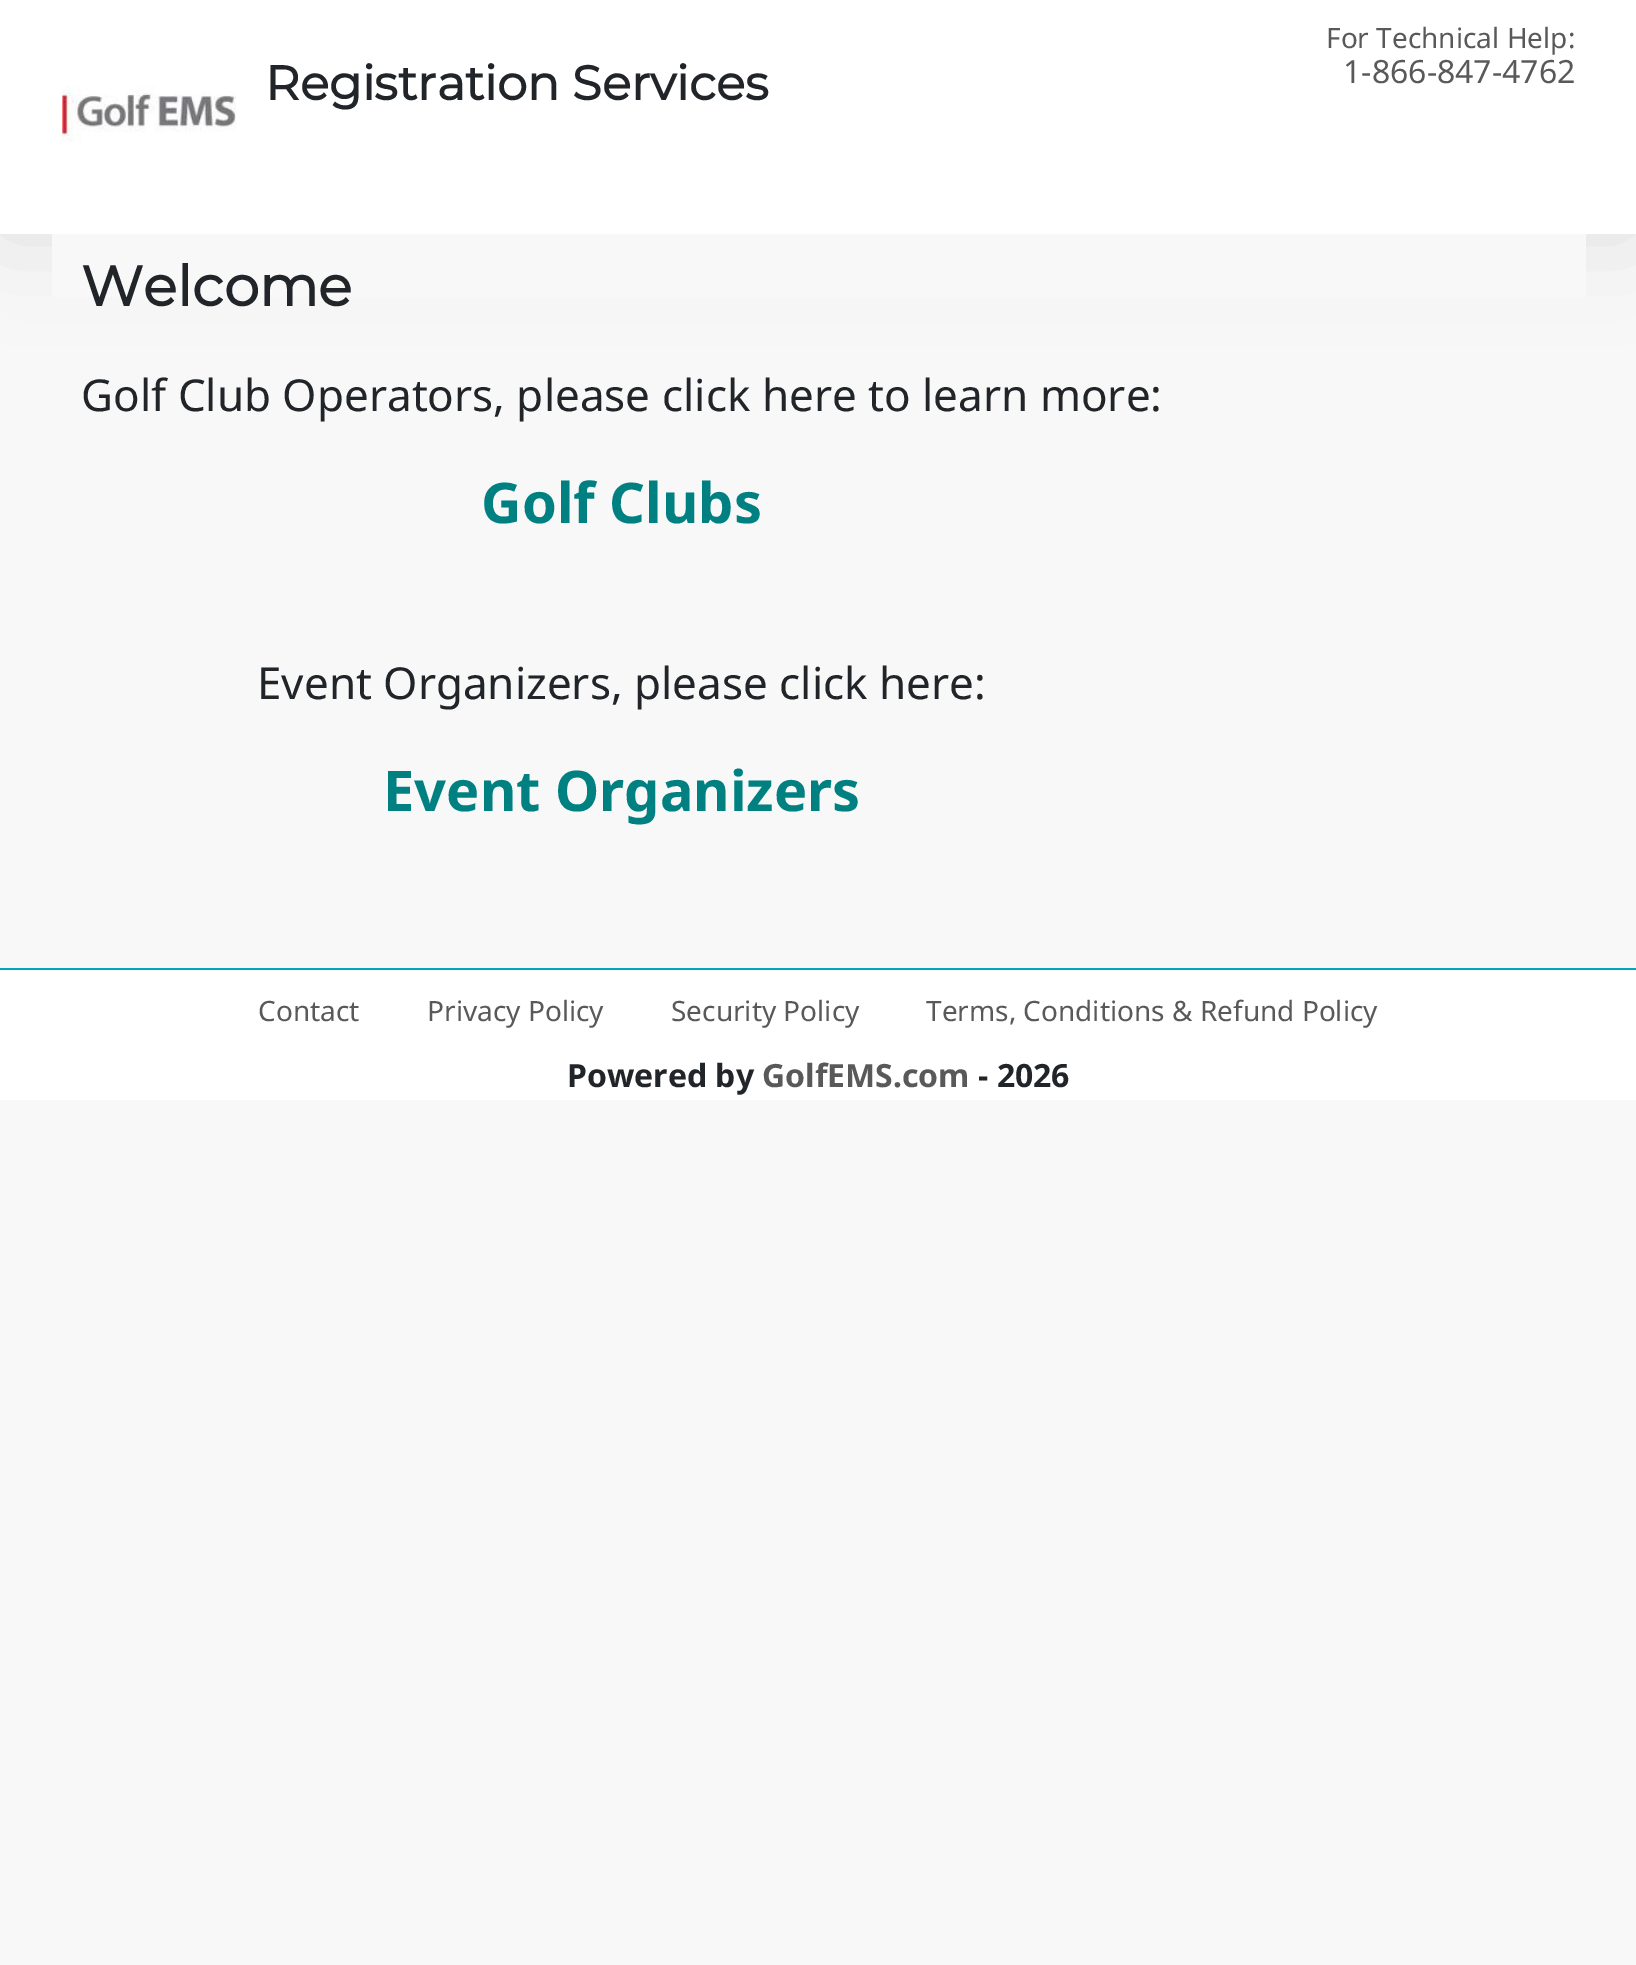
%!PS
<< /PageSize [1636 1965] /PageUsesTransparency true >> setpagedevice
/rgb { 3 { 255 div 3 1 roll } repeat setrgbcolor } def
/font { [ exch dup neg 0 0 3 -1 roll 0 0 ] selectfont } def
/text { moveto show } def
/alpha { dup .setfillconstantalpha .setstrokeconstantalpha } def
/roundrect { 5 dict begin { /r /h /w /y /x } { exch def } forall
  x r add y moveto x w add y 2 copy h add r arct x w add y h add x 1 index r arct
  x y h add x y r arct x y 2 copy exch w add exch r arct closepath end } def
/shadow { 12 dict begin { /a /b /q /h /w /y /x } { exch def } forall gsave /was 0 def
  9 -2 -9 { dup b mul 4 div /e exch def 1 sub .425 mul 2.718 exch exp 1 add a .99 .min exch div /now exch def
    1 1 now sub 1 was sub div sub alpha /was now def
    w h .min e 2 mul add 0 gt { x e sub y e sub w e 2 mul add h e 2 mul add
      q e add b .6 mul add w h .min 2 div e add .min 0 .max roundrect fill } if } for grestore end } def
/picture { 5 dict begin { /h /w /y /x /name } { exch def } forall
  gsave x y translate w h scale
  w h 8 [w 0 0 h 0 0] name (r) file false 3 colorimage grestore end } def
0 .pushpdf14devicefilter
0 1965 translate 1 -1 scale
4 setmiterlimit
248 248 248 rgb
0 0 1636 1965 rectfill
0 0 0 rgb
0 0 1636 234 0 50 0.1 shadow
255 255 255 rgb
0 0 1636 234 rectfill
(img_01.rgb) 62 86 174 56 picture
248 248 248 rgb
52 234 1534 63 rectfill
0 166 186 rgb
0 968 1636 2 rectfill
255 255 255 rgb
0 970 1636 130 rectfill
/Montserrat-Bold 48 font
33 37 41 rgb
(Registration Services) 265 100 text
/NotoSans-Regular 28 font
89 89 89 rgb
(For Technical Help:) 1326 48 text
/NotoSans-Regular 32 font
(1-866-847-4762) 1343 83 text
/Montserrat-Bold 56 font
33 37 41 rgb
(Welcome) 81 306 text
/NotoSans-Regular 44 font
(Golf Club Operators, please click here to learn more:) 81 411 text
/NotoSans-Bold 56 font
0 128 128 rgb
(Golf Clubs) 481 523 text
/NotoSans-Regular 44 font
33 37 41 rgb
(Event Organizers, please click here:) 257 699 text
/NotoSans-Bold 56 font
0 128 128 rgb
(Event Organizers) 383 811 text
/NotoSans-Regular 28 font
89 89 89 rgb
(Contact) 258 1021 text
(Privacy Policy) 427 1021 text
(Security Policy) 671 1021 text
(Terms, Conditions & Refund Policy) 926 1021 text
/NotoSans-Bold 32 font
33 37 41 rgb
(Powered by) 567 1087 text
89 89 89 rgb
(GolfEMS.com) 762 1087 text
33 37 41 rgb
(- 2026) 978 1087 text
.poppdf14devicefilter showpage
